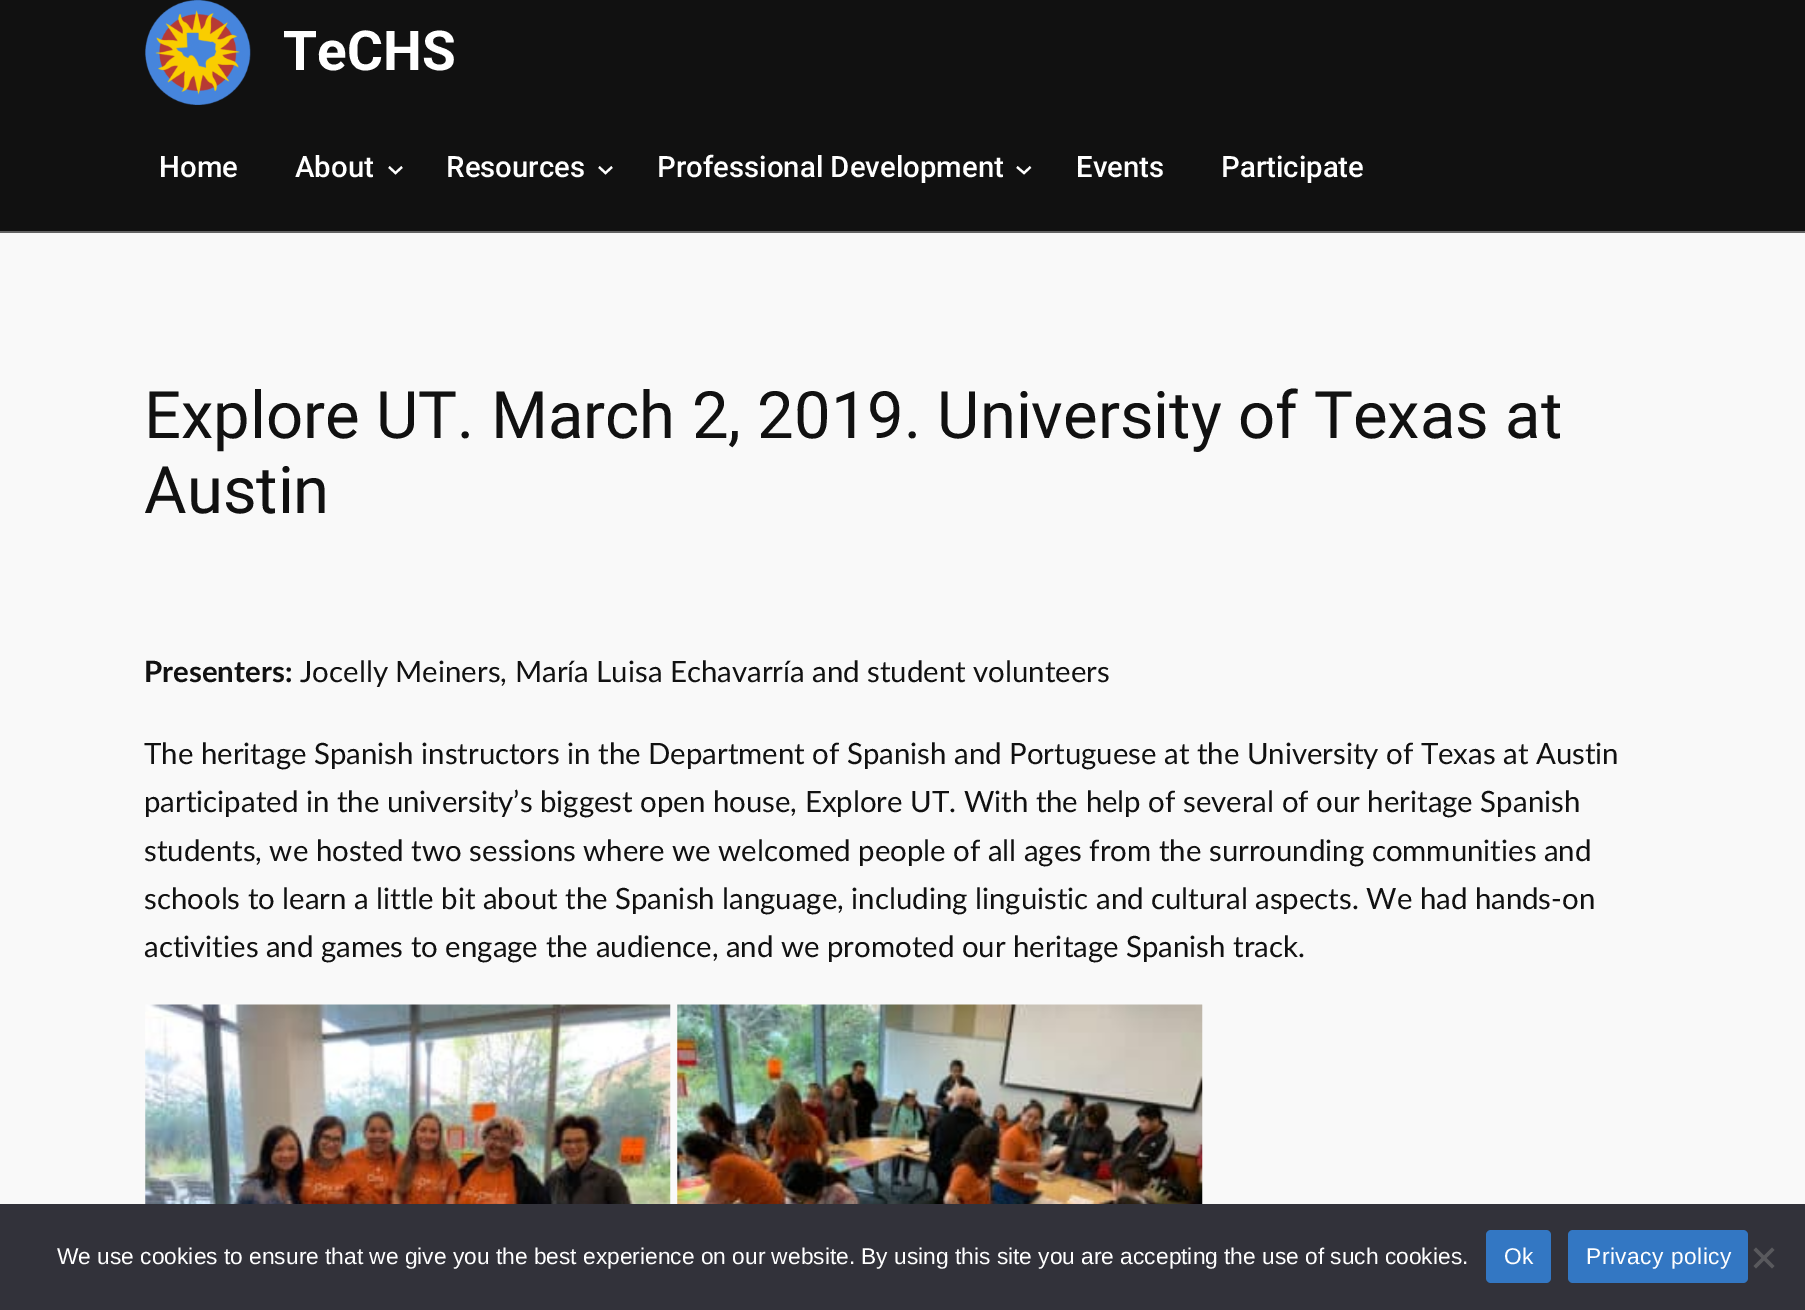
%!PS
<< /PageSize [1805 1310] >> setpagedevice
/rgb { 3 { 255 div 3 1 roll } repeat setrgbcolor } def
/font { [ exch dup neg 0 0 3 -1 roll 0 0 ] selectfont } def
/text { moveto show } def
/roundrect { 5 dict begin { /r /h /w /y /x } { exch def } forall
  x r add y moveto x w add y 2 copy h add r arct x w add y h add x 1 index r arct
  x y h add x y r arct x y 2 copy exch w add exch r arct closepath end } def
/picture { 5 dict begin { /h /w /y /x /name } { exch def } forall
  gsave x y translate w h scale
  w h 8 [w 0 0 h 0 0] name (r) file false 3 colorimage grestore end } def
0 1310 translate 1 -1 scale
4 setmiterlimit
249 249 249 rgb
0 0 1805 1310 rectfill
17 17 17 rgb
0 0 1805 231 rectfill
99 99 99 rgb
0 231 1805 2 rectfill
(img_01.rgb) 145 0 106 105 picture
255 255 255 rgb
2.2 setlinewidth
389 167 moveto 6.5 6 rlineto 6.5 -6 rlineto stroke
599 167 moveto 6.5 6 rlineto 6.5 -6 rlineto stroke
1017 167 moveto 7 6 rlineto 6.5 -6 rlineto stroke
(img_02.rgb) 145 1004 526 200 picture
(img_03.rgb) 677 1004 526 200 picture
50 50 58 rgb
0 1204 1805 106 rectfill
51 119 195 rgb
1486 1230 65 53 5 roundrect fill
1568 1230 180 53 5 roundrect fill
89 89 93 rgb
1772 1247.5 moveto 2.5 2.5 rlineto -18.5 18.5 rlineto -2.5 -2.5 rlineto closepath fill
1753.5 1250 moveto 2.5 -2.5 rlineto 18.5 18.5 rlineto -2.5 2.5 rlineto closepath fill
/Roboto-Bold 55 font
255 255 255 rgb
(TeCHS) 283 70 text
/Roboto-Medium 29.4 font
(Home) 159 177 text
(About) 295 177 text
(Resources) 446 177 text
(Professional Development) 657 177 text
(Events) 1076 177 text
(Participate) 1221 177 text
/Roboto-Regular 65.25 font
17 17 17 rgb
(Explore UT. March 2, 2019. University of Texas at) 144 438 text
(Austin) 144 513 text
/Lato-Bold 29.4 font
(Presenters:) 144 682 text
/Lato-Regular 29.4 font
(Jocelly Meiners, María Luisa Echavarría and student volunteers) 300 682 text
(The heritage Spanish instructors in the Department of Spanish and Portuguese at the University of Texas at Austin) 144 764 text
(participated in the university’s biggest open house, Explore UT. With the help of several of our heritage Spanish) 144 812 text
(students, we hosted two sessions where we welcomed people of all ages from the surrounding communities and) 144 861 text
(schools to learn a little bit about the Spanish language, including linguistic and cultural aspects. We had hands-on) 144 909 text
(activities and games to engage the audience, and we promoted our heritage Spanish track.) 144 957 text
/LiberationSans-Regular 22.75 font
255 255 255 rgb
(We use cookies to ensure that we give you the best experience on our website. By using this site you are accepting the use of such cookies.) 57 1264 text
1504 1264 moveto 0.5 0 (Ok) ashow
1586 1264 moveto 0.5 0 (Privacy policy) ashow
showpage
